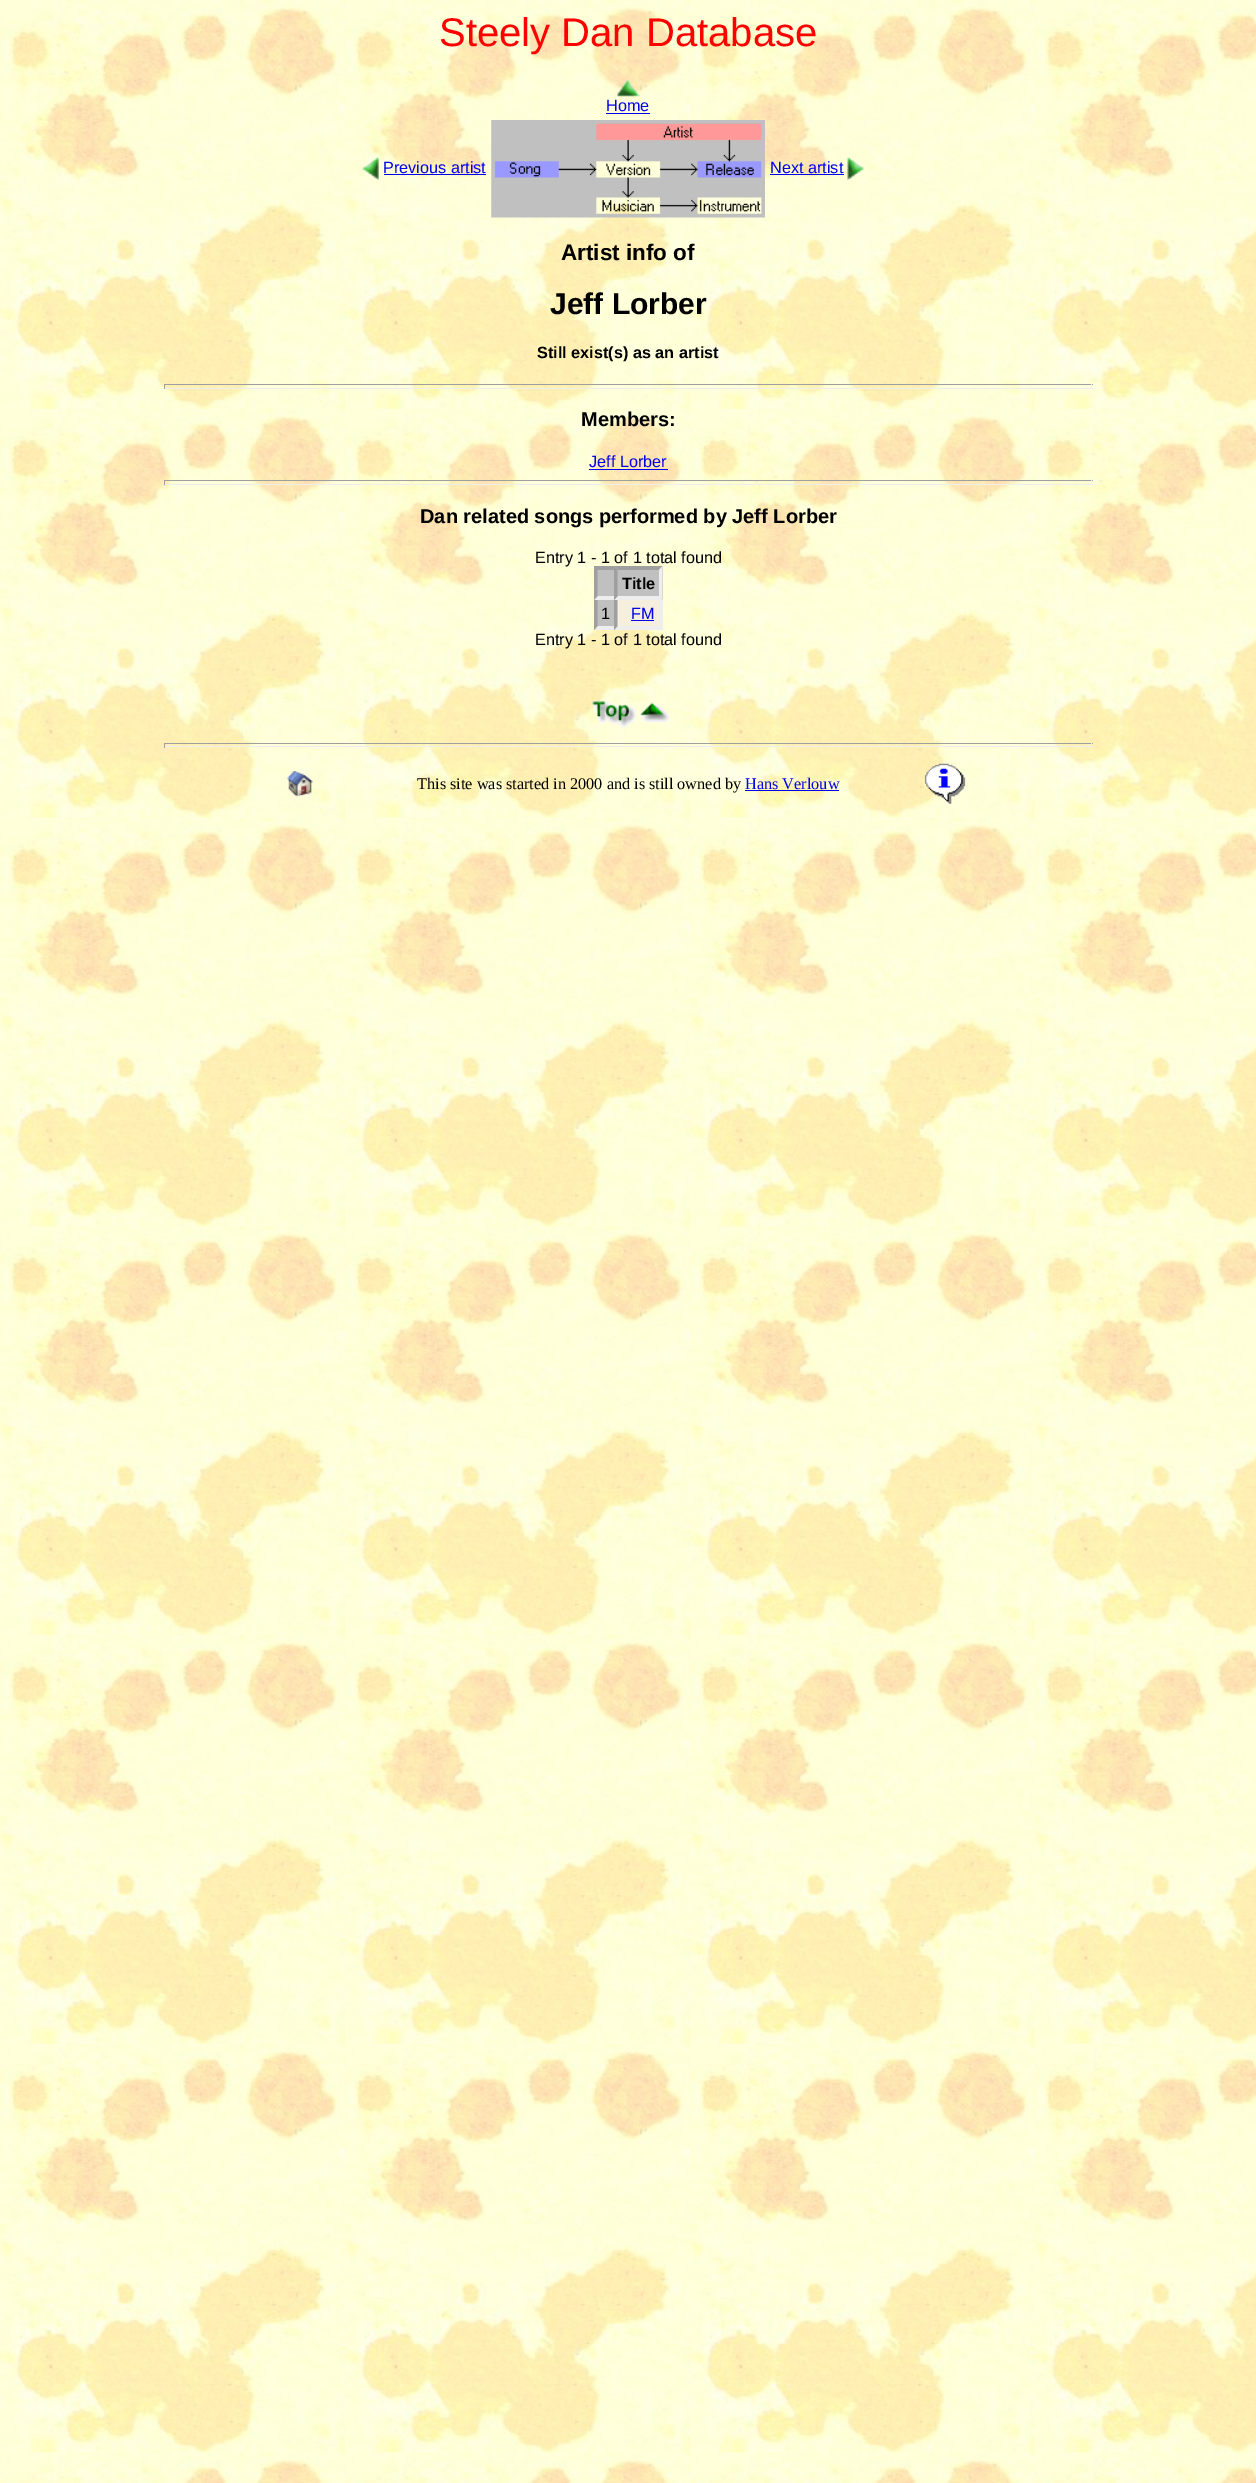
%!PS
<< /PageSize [1256 2483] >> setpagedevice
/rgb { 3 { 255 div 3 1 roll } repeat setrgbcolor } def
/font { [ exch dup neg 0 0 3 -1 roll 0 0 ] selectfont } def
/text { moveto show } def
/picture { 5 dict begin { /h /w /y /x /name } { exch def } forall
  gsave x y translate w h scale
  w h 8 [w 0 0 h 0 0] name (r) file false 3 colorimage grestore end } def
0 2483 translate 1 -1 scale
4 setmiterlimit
255 255 255 rgb
0 0 1256 2483 rectfill
(img_01.rgb) 0 0 1256 2483 picture
(img_02.rgb) 617 80 23 17 picture
0 0 238 rgb
606 113 44 1 rectfill
(img_03.rgb) 362 157 17 23 picture
384 174 102 1 rectfill
(img_04.rgb) 491 120 274 98 picture
770 174 74 1 rectfill
(img_05.rgb) 847 157 17 23 picture
159 159 159 rgb
164 384 929 1 rectfill
238 238 238 rgb
1091 384 1 5 rectfill
164 388 929 1 rectfill
159 159 159 rgb
164 384 1 5 rectfill
0 0 238 rgb
589 469 79 1 rectfill
159 159 159 rgb
164 480 929 1 rectfill
238 238 238 rgb
1091 480 1 5 rectfill
164 484 929 1 rectfill
159 159 159 rgb
164 480 1 5 rectfill
247 239 222 rgb
614 600 45 30 rectfill
192 192 192 rgb
594 570 20 60 rectfill
159 159 159 rgb
594 566 20 4 rectfill
238 238 238 rgb
614 600 moveto -20 0 rlineto 3.5 -4 rlineto 16.5 0 rlineto closepath fill
159 159 159 rgb
594 600 moveto 0 -34 rlineto 3.5 4 rlineto 0 26 rlineto closepath fill
192 192 192 rgb
614 566 49 34 rectfill
159 159 159 rgb
614 566 moveto 48 0 rlineto -3 4 rlineto -41 0 rlineto closepath fill
238 238 238 rgb
662.5 566 moveto 0 34 rlineto -3.5 -4 rlineto 0 -26 rlineto closepath fill
662 600 moveto -48 0 rlineto 4 -4 rlineto 41 0 rlineto closepath fill
159 159 159 rgb
614 600 moveto 0 -34 rlineto 3.5 4 rlineto 0 26 rlineto closepath fill
238 238 238 rgb
614 630 moveto -20 0 rlineto 3.5 -4 rlineto 16.5 0 rlineto closepath fill
159 159 159 rgb
594 630 moveto 0 -30 rlineto 3.5 0 rlineto 0 26 rlineto closepath fill
238 238 238 rgb
627.5 630 moveto -13.5 0 rlineto 3.5 -4 rlineto 10 0 rlineto closepath fill
159 159 159 rgb
614 630 moveto 0 -30 rlineto 3.5 0 rlineto 0 26 rlineto closepath fill
238 238 238 rgb
659 600 4 30 rectfill
628 626 35 4 rectfill
0 0 238 rgb
631 620 23 1 rectfill
(img_06.rgb) 592 701 78 27 picture
159 159 159 rgb
164 743 929 1 rectfill
238 238 238 rgb
1091 743 1 5 rectfill
164 746 929 1 rectfill
159 159 159 rgb
164 743 1 5 rectfill
(img_07.rgb) 287 771 26 26 picture
0 0 238 rgb
745 790 94 1 rectfill
(img_08.rgb) 924 763 42 41 picture
/LiberationSans-Regular 40 font
255 0 0 rgb
(Steely Dan Database) 439 46 text
/LiberationSans-Regular 16.25 font
0 0 238 rgb
(Home) 606 111 text
(Previous artist) 383 173 text
(Next artist) 770 173 text
/LiberationSans-Bold 22.5 font
0 0 0 rgb
(Artist info of) 561 260 text
/LiberationSans-Bold 30 font
(Jeff Lorber) 550 314 text
/LiberationSans-Bold 16.25 font
(Still exist\(s\) as an artist) 537 358 text
/LiberationSans-Bold 20 font
(Members:) 581 426 text
/LiberationSans-Regular 16.25 font
0 0 238 rgb
(Jeff Lorber) 589 467 text
/LiberationSans-Bold 20 font
0 0 0 rgb
(Dan related songs performed by Jeff Lorber) 420 523 text
/LiberationSans-Regular 16.25 font
(Entry 1 - 1 of 1 total found) 535 563 text
/LiberationSans-Bold 16.25 font
(Title) 622 589 text
/LiberationSans-Regular 16.25 font
(1) 601 619 text
0 0 238 rgb
(FM) 631 619 text
0 0 0 rgb
(Entry 1 - 1 of 1 total found) 535 645 text
/LiberationSerif-Regular 16.25 font
(This site was started in 2000 and is still owned by) 417 789 text
0 0 238 rgb
(Hans Verlouw) 745 789 text
showpage
